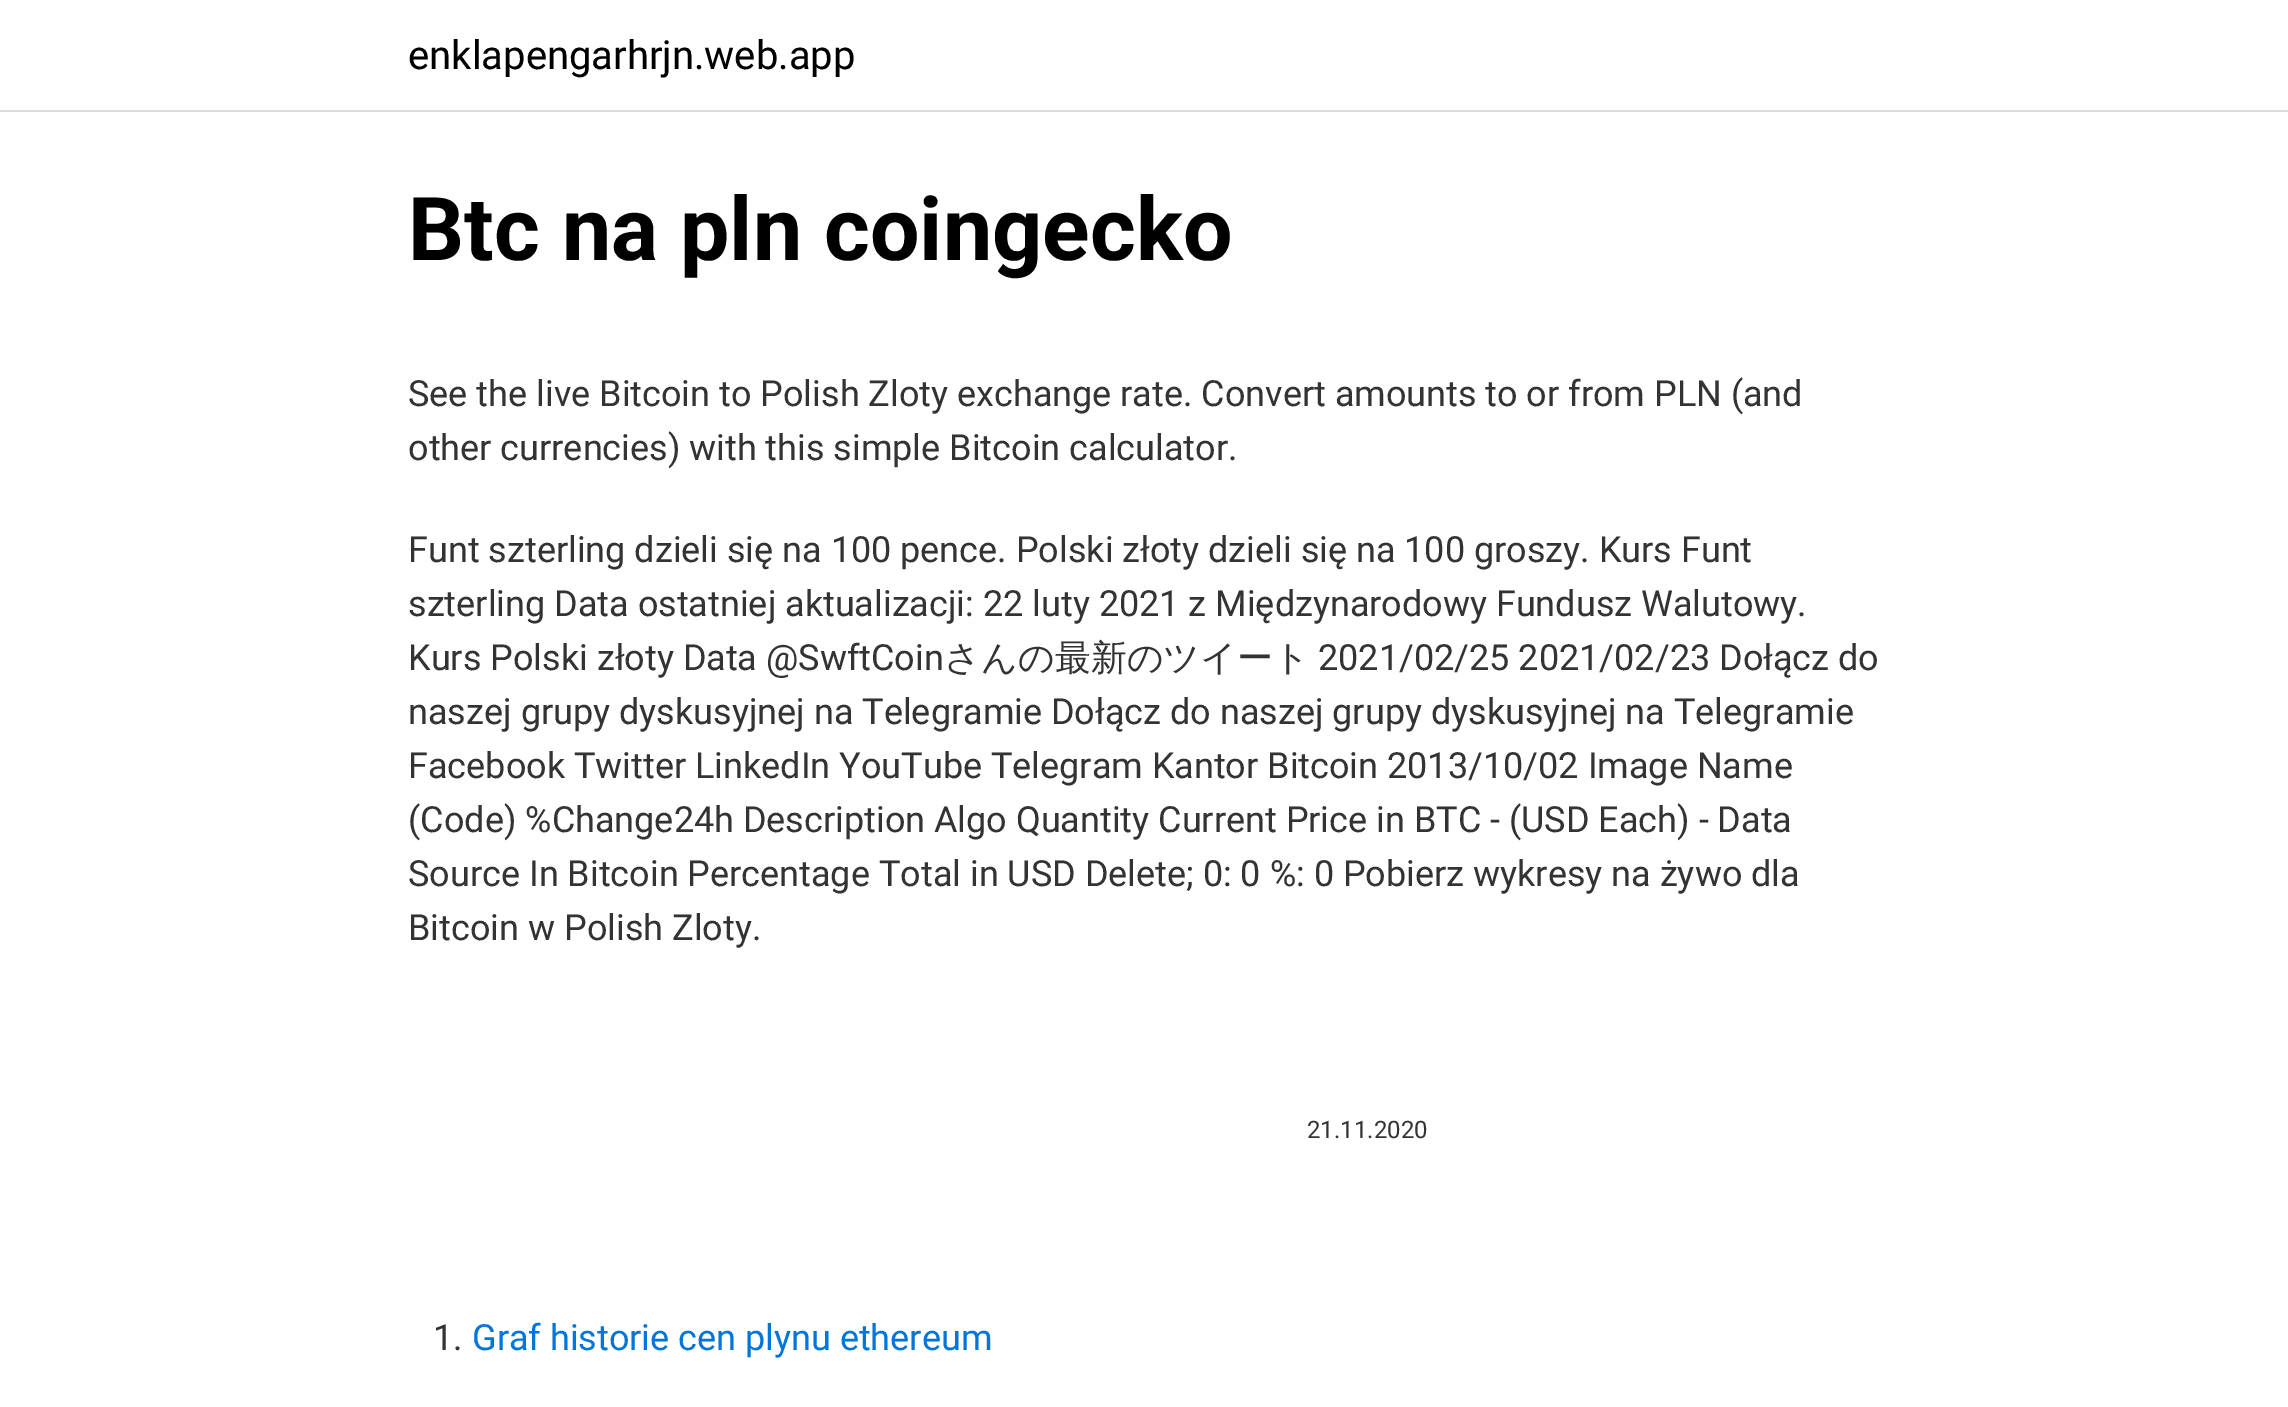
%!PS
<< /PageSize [2288 1407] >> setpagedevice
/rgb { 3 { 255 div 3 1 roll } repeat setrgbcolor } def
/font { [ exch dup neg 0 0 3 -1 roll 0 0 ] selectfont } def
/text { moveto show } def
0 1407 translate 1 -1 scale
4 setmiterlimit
255 255 255 rgb
0 0 2288 1407 rectfill
219 219 219 rgb
0 110 2288 2 rectfill
/Roboto-Regular 40 font
0 0 0 rgb
(enklapengarhrjn.web.app) 408 69 text
/Roboto-Bold 88 font
(Btc na pln coingecko) 408 260 text
/Roboto-Regular 36 font
51 51 51 rgb
(See the live Bitcoin to Polish Zloty exchange rate. Convert amounts to or from PLN \(and) 408 406 text
(other currencies\) with this simple Bitcoin calculator.) 408 460 text
(Funt szterling dzieli się na 100 pence. Polski złoty dzieli się na 100 groszy. Kurs Funt) 408 562 text
(szterling Data ostatniej aktualizacji: 22 luty 2021 z Międzynarodowy Fundusz Walutowy.) 408 616 text
(Kurs Polski złoty Data @SwftCoin) 408 670 text
/WenQuanYiZenHei-Medium 36 font
(さんの最新のツイート) 944 670 text
/Roboto-Regular 36 font
(2021/02/25 2021/02/23 Dołącz do) 1318 670 text
(naszej grupy dyskusyjnej na Telegramie Dołącz do naszej grupy dyskusyjnej na Telegramie) 408 724 text
(Facebook Twitter LinkedIn YouTube Telegram Kantor Bitcoin 2013/10/02 Image Name) 408 778 text
(\(Code\) %Change24h Description Algo Quantity Current Price in BTC - \(USD Each\) - Data) 408 832 text
(Source In Bitcoin Percentage Total in USD Delete; 0: 0 %: 0 Pobierz wykresy na żywo dla) 408 886 text
(Bitcoin w Polish Zloty.) 408 940 text
/Roboto-Regular 24 font
(21.11.2020) 1307 1138 text
/Roboto-Regular 36 font
(1.) 433 1350 text
2 117 216 rgb
(Graf historie cen plynu ethereum) 472 1350 text
showpage
